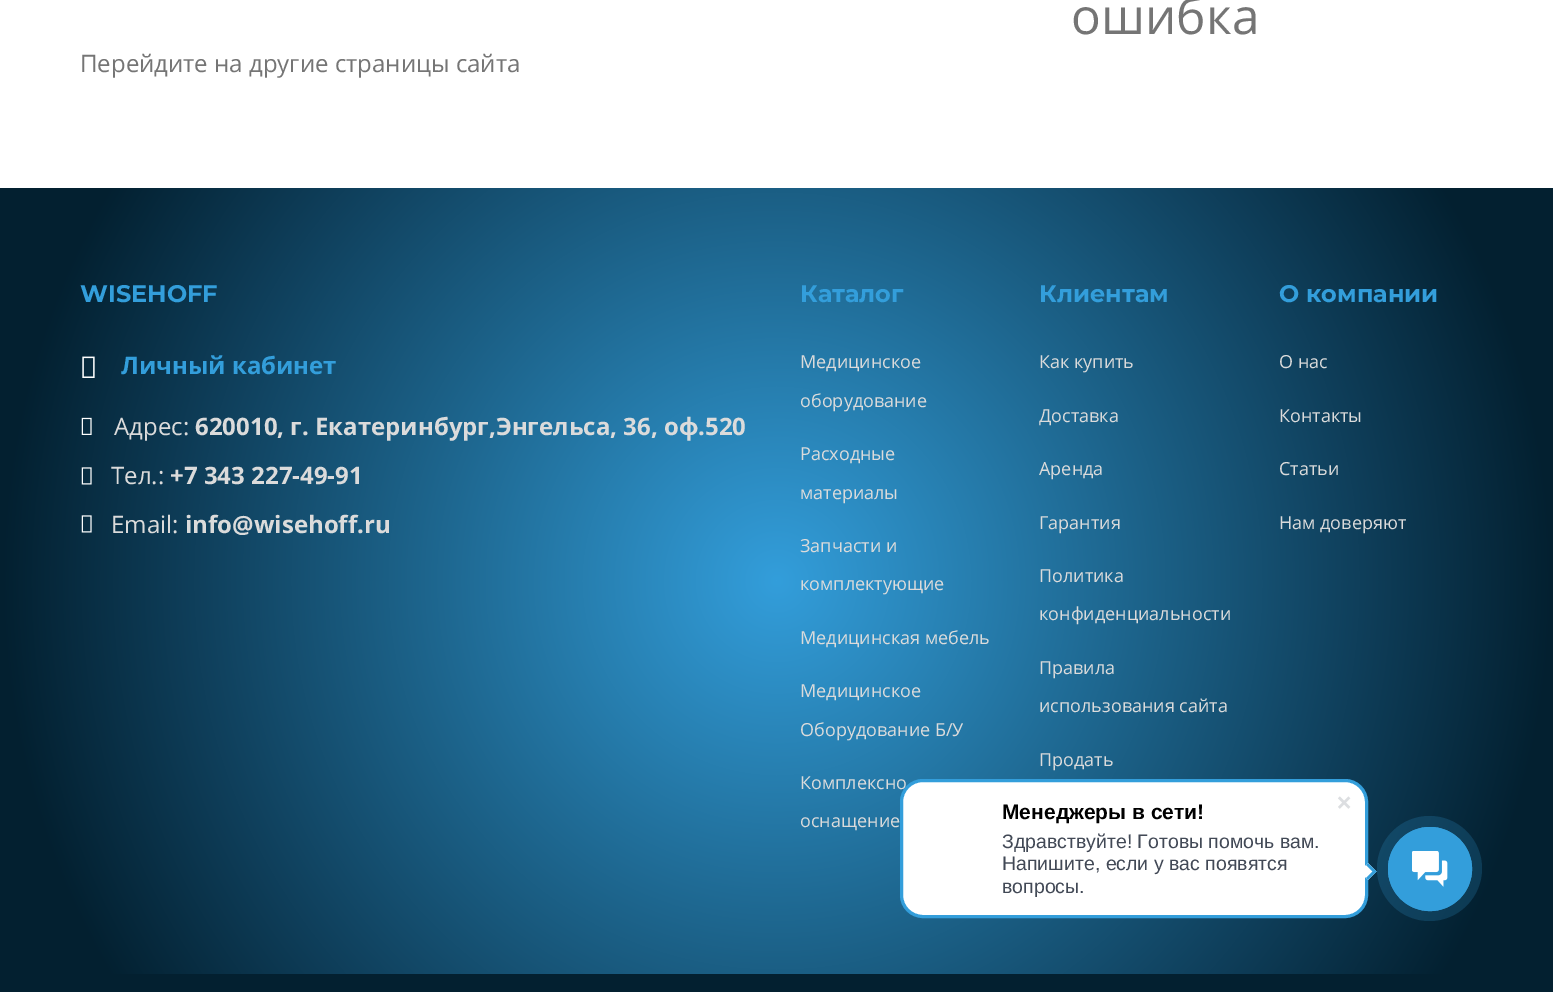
%!PS
<< /PageSize [1553 992] /PageUsesTransparency true >> setpagedevice
/rgb { 3 { 255 div 3 1 roll } repeat setrgbcolor } def
/font { [ exch dup neg 0 0 3 -1 roll 0 0 ] selectfont } def
/text { moveto show } def
/alpha { dup .setfillconstantalpha .setstrokeconstantalpha } def
/circle { newpath 0 360 arc closepath } def
/roundrect { 5 dict begin { /r /h /w /y /x } { exch def } forall
  x r add y moveto x w add y 2 copy h add r arct x w add y h add x 1 index r arct
  x y h add x y r arct x y 2 copy exch w add exch r arct closepath end } def
/picture { 5 dict begin { /h /w /y /x /name } { exch def } forall
  gsave x y translate w h scale
  w h 8 [w 0 0 h 0 0] name (r) file false 3 colorimage grestore end } def
0 .pushpdf14devicefilter
0 992 translate 1 -1 scale
4 setmiterlimit
255 255 255 rgb
0 0 1553 992 rectfill
gsave 0 188 moveto 1553 0 rlineto 0 786 rlineto -1553 0 rlineto closepath clip newpath 777 581 translate 777 777 scale
<< /ShadingType 3 /ColorSpace /DeviceRGB /Coords [0 0 0 0 0 1] /Extend [true true] /Function << /FunctionType 2 /Domain [0 1] /C0 [0.2 0.62 0.859] /C1 [0.012 0.125 0.188] /N 1 >> >> shfill grestore
(img_01.rgb) 82 356 13 22 picture
(img_02.rgb) 81 417 11 18 picture
(img_03.rgb) 81 467 11 18 picture
(img_04.rgb) 81 515 11 18 picture
3 32 48 rgb
0 974 1553 18 rectfill
0.2 alpha
51 158 219 rgb
1429.5 868.5 52.5 circle fill
1 alpha
1430 869 41.5 circle stroke
1430 869 42 circle fill
(img_06.rgb) 1412 851 36 36 picture
/OpenSans-Regular 49.5 font
117 117 117 rgb
(ошибка) 1071 34 text
/OpenSans-Regular 24 font
(Перейдите на другие страницы сайта) 80 72 text
/Montserrat-Bold 24 font
51 158 219 rgb
(WISEHOFF) 80 302 text
/OpenSans-Bold 24 font
(Личный кабинет) 121 374 text
/OpenSans-Regular 24 font
219 219 219 rgb
(Адрес:) 114 435 text
/OpenSans-Bold 24 font
(620010, г. Екатеринбург,Энгельса, 36, оф.520) 195 435 text
/OpenSans-Regular 24 font
(Тел.:) 111 484 text
/OpenSans-Bold 24 font
(+7 343 227-49-91) 170 484 text
/OpenSans-Regular 24 font
(Email:) 111 533 text
/OpenSans-Bold 24 font
(info@wisehoff.ru) 185 533 text
/Montserrat-Bold 24 font
51 158 219 rgb
(Каталог) 800 302 text
/OpenSans-Regular 18 font
219 219 219 rgb
(Медицинское) 800 368 text
(оборудование) 800 407 text
(Расходные) 800 460 text
(материалы) 800 499 text
(Запчасти и) 800 552 text
(комплектующие) 800 590 text
(Медицинская мебель) 800 644 text
(Медицинское) 800 697 text
(Оборудование Б/У) 800 736 text
(Комплексно) 800 789 text
(оснащение) 800 827 text
/Montserrat-Bold 24 font
51 158 219 rgb
(Клиентам) 1039 302 text
/OpenSans-Regular 18 font
219 219 219 rgb
(Как купить) 1039 368 text
(Доставка) 1039 422 text
(Аренда) 1039 475 text
(Гарантия) 1039 529 text
(Политика) 1039 582 text
(конфиденциальности) 1039 620 text
(Правила) 1039 674 text
(использования сайта) 1039 712 text
(Продать) 1039 766 text
/Montserrat-Bold 24 font
51 158 219 rgb
(О компании) 1279 302 text
/OpenSans-Regular 18 font
219 219 219 rgb
(О нас) 1279 368 text
(Контакты) 1279 422 text
(Статьи) 1279 475 text
(Нам доверяют) 1279 529 text
255 255 255 rgb
901.5 780.5 465 136 21.5 roundrect gsave fill grestore
51 158 219 rgb
3 setlinewidth
stroke
(img_05.rgb) 1338 796 13 13 picture
/LiberationSans-Bold 21 font
0 0 0 rgb
(Менеджеры в сети!) 1002 819 text
/LiberationSans-Regular 19.5 font
66 73 86 rgb
(Здравствуйте! Готовы помочь вам.) 1002 848 text
(Напишите, если у вас появятся) 1002 870 text
(вопросы.) 1002 893 text
255 255 255 rgb
1359.5 871.5 moveto 8.5 -8.5 rlineto 8.5 8.5 rlineto -8.5 8.5 rlineto closepath fill
51 158 219 rgb
1366 865 moveto 2 -2 rlineto 8.5 8.5 rlineto -2 2 rlineto closepath fill
1366 878 moveto 8.5 -8.5 rlineto 2 2 rlineto -8.5 8.5 rlineto closepath fill
.poppdf14devicefilter showpage
